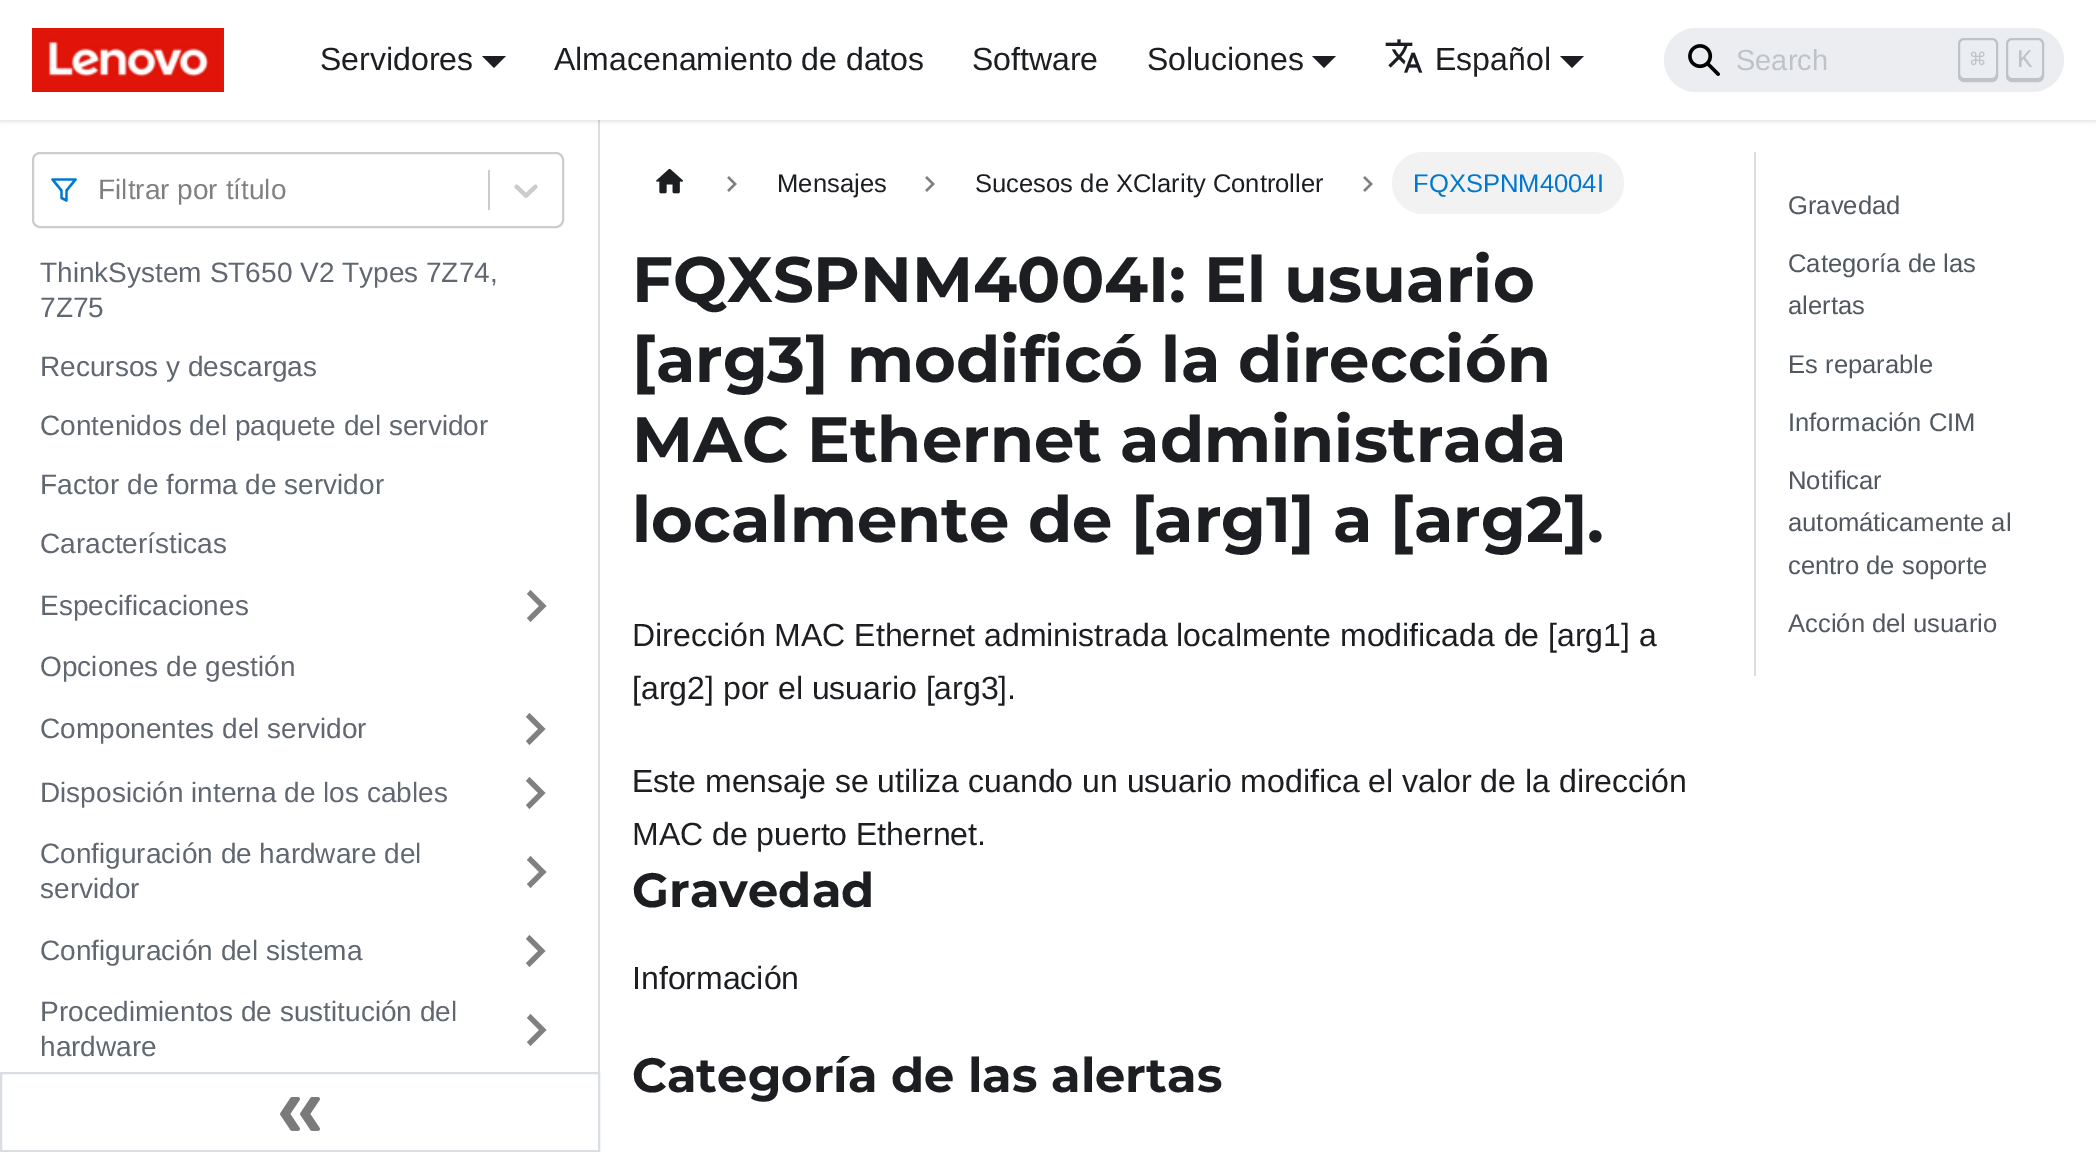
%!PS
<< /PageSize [2096 1152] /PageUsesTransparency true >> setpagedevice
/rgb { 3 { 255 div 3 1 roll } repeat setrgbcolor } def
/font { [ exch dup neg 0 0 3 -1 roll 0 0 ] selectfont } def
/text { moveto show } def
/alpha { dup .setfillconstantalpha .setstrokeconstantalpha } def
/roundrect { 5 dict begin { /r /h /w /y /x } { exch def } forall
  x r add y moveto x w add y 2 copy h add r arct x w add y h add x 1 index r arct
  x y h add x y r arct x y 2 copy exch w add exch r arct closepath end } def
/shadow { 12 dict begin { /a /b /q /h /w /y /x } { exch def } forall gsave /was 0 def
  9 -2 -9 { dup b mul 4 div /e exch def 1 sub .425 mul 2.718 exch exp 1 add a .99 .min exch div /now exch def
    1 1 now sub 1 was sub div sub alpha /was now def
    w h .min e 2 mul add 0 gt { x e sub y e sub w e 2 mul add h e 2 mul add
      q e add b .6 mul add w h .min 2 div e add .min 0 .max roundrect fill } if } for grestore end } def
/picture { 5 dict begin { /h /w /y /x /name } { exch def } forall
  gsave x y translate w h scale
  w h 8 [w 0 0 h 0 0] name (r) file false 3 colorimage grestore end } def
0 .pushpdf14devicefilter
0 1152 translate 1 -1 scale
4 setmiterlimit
255 255 255 rgb
0 0 2096 1152 rectfill
218 221 225 rgb
598 120 2 952 rectfill
0 0 0 rgb
0 2 2096 120 0 2 0.1 shadow
255 255 255 rgb
0 0 2096 120 rectfill
(img_01.rgb) 32 28 192 64 picture
28 30 33 rgb
482 56 moveto 24 0 rlineto -12 12 rlineto closepath fill
1312 56 moveto 24 0 rlineto -12 12 rlineto closepath fill
(img_02.rgb) 1385 39 38 34 picture
1560 56 moveto 24 0 rlineto -12 12 rlineto closepath fill
235 237 240 rgb
1664 28 400 64 32 roundrect fill
(img_03.rgb) 1688 44 32 32 picture
190 195 201 rgb
1960 74 moveto 0 6.5 2.5 6 8.5 6 rcurveto 19 0 rlineto 6 0 8.5 0.5 8.5 -6 rcurveto 0 2 -2 4 -4 4 rcurveto -28 0 rlineto -2 0 -4 -2 -4 -4 rcurveto closepath fill
2 setlinewidth
1959 39 38 42 5 roundrect stroke
2008 74 moveto 0 6.5 2.5 6 8.5 6 rcurveto 17 0 rlineto 6 0 8.5 0.5 8.5 -6 rcurveto 0 2 -2 4 -4 4 rcurveto -26 0 rlineto -2 0 -4 -2 -4 -4 rcurveto closepath fill
2007 39 36 42 5 roundrect stroke
204 204 204 rgb
33 153 530 74 7 roundrect stroke
0 120 208 rgb
2.3 setlinewidth
1 setlinecap
1 setlinejoin
75.5 179.5 moveto -23 0 rlineto 9 11 rlineto 0 7.5 rlineto 5 2.5 rlineto 0 -10 rlineto closepath stroke
204 204 204 rgb
488 170 2 40 rectfill
(img_04.rgb) 514 184 24 14 picture
128 128 128 rgb
527 594 moveto 12 12 rlineto -12 12 rlineto 3.5 4 rlineto 16 -16 rlineto -16 -16 rlineto closepath fill
526 717 moveto 12 12 rlineto -12 12 rlineto 3.5 4 rlineto 16 -16 rlineto -16 -16 rlineto closepath fill
526 781 moveto 12 12 rlineto -12 12 rlineto 3.5 4 rlineto 16 -16 rlineto -16 -16 rlineto closepath fill
527 860 moveto 12 12 rlineto -12 12 rlineto 3.5 4 rlineto 16 -16 rlineto -16 -16 rlineto closepath fill
526 939 moveto 12 12 rlineto -12 12 rlineto 3.5 4 rlineto 16 -16 rlineto -16 -16 rlineto closepath fill
527 1018 moveto 12 12 rlineto -12 12 rlineto 3.5 4 rlineto 16 -16 rlineto -16 -16 rlineto closepath fill
218 221 225 rgb
2 setlinewidth
0 setlinecap
0 setlinejoin
1 1073 598 78 rectstroke
(img_05.rgb) 280 1097 40 34 picture
(img_06.rgb) 656 168 27 26 picture
(img_07.rgb) 727 176 10 16 picture
(img_07.rgb) 925 176 10 16 picture
(img_07.rgb) 1363 176 10 16 picture
242 242 242 rgb
1392 152 232 62 31 roundrect fill
218 221 225 rgb
1754 152 2 524 rectfill
/LiberationSans-Regular 32 font
28 30 33 rgb
(Servidores) 320 70 text
(Almacenamiento de datos) 554 70 text
(Software) 972 70 text
(Soluciones) 1147 70 text
(Español) 1435 70 text
/LiberationSans-Regular 29 font
190 195 201 rgb
(Search) 1736 70 text
/DejaVuSansMono-Regular 25.6 font
(⌘) 1970 68 text
/LiberationMono-Regular 25.6 font
(K) 2017 67 text
/LiberationSans-Regular 28 font
128 128 128 rgb
(Filtrar por título) 98 199 text
96 103 112 rgb
(ThinkSystem ST650 V2 Types 7Z74,) 40 282 text
(7Z75) 40 317 text
(Recursos y descargas) 40 376 text
(Contenidos del paquete del servidor) 40 435 text
(Factor de forma de servidor) 40 494 text
(Características) 40 553 text
(Especificaciones) 40 615 text
(Opciones de gestión) 40 676 text
(Componentes del servidor) 40 738 text
(Disposición interna de los cables) 40 802 text
(Configuración de hardware del) 40 863 text
(servidor) 40 898 text
(Configuración del sistema) 40 960 text
(Procedimientos de sustitución del) 40 1021 text
(hardware) 40 1056 text
/LiberationSans-Regular 25.6 font
28 30 33 rgb
(Mensajes) 777 192 text
(Sucesos de XClarity Controller) 975 192 text
0 120 208 rgb
(FQXSPNM4004I) 1413 192 text
/Montserrat-Bold 64 font
28 30 33 rgb
(FQXSPNM4004I: El usuario) 632 302 text
([arg3] modificó la dirección) 632 382 text
(MAC Ethernet administrada) 632 462 text
(localmente de [arg1] a [arg2].) 632 542 text
/LiberationSans-Regular 32 font
(Dirección MAC Ethernet administrada localmente modificada de [arg1] a) 632 646 text
([arg2] por el usuario [arg3].) 632 699 text
(Este mensaje se utiliza cuando un usuario modifica el valor de la dirección) 632 792 text
(MAC de puerto Ethernet.) 632 845 text
/Montserrat-Bold 48 font
(Gravedad) 632 907 text
/LiberationSans-Regular 32 font
(Información) 632 989 text
/Montserrat-Bold 48 font
(Categoría de las alertas) 632 1092 text
/LiberationSans-Regular 25.6 font
82 88 96 rgb
(Gravedad) 1788 214 text
(Categoría de las) 1788 272 text
(alertas) 1788 314 text
(Es reparable) 1788 373 text
(Información CIM) 1788 431 text
(Notificar) 1788 489 text
(automáticamente al) 1788 531 text
(centro de soporte) 1788 574 text
(Acción del usuario) 1788 632 text
.poppdf14devicefilter showpage
